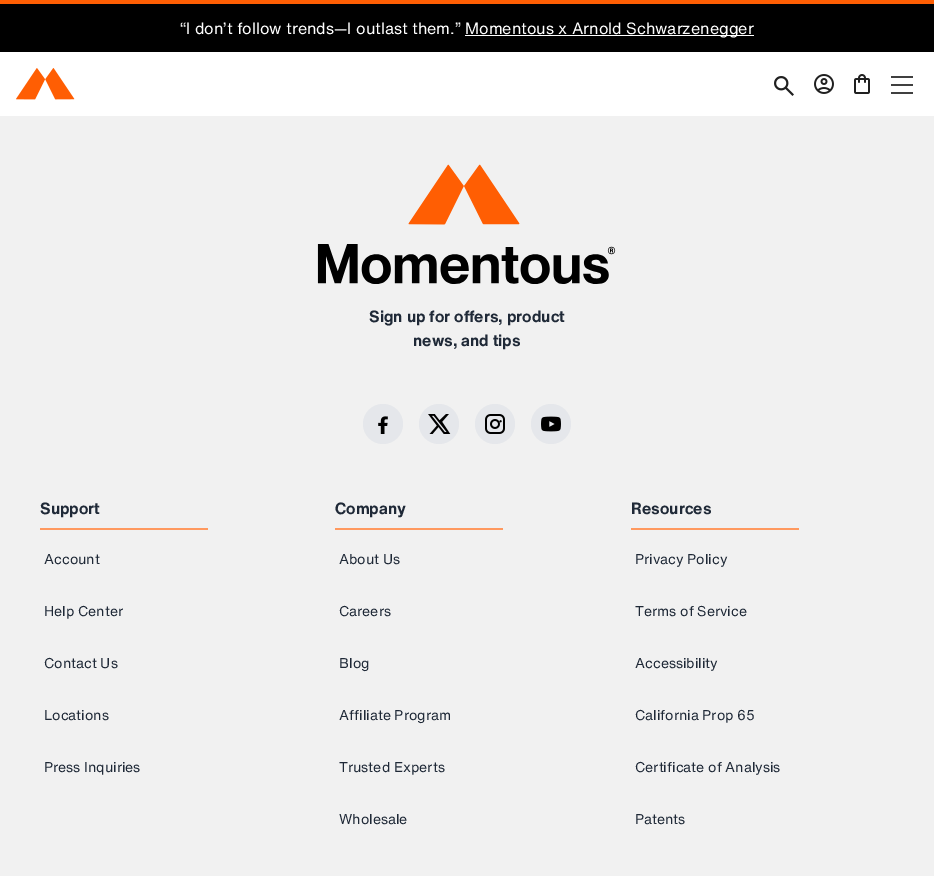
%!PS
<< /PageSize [934 876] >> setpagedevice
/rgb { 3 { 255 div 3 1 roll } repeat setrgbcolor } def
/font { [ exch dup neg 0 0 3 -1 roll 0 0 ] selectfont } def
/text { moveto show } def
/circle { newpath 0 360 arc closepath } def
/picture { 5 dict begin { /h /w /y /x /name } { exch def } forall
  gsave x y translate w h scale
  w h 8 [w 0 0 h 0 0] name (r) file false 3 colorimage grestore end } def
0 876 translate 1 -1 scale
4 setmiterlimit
255 255 255 rgb
0 0 934 876 rectfill
0 0 0 rgb
0 4 934 48 rectfill
255 94 3 rgb
0 0 934 4 rectfill
255 255 255 rgb
465 35 289 1 rectfill
(img_01.rgb) 16 68 59 32 picture
(img_02.rgb) 774 76 20 20 picture
(img_03.rgb) 814 74 20 20 picture
(img_04.rgb) 854 74 16 20 picture
64 64 64 rgb
891 92 22 2 rectfill
891 84 22 2 rectfill
891 76 22 2 rectfill
241 241 241 rgb
0 116 934 760 rectfill
(img_05.rgb) 317 164 299 120 picture
229 231 235 rgb
383 424 20 circle fill
(img_06.rgb) 378 416 10 18 picture
439 424 20 circle fill
(img_07.rgb) 428 414 23 20 picture
495 424 20 circle fill
(img_08.rgb) 485 414 20 20 picture
551 424 20 circle fill
(img_09.rgb) 541 416 20 16 picture
255 153 95 rgb
40 528 168 2 rectfill
335 528 168 2 rectfill
631 528 168 2 rectfill
/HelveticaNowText-Regular 16 font
255 255 255 rgb
(“I don’t follow trends—I outlast them.”) 180 34 text
(Momentous x Arnold Schwarzenegger) 465 34 text
/HelveticaNowText-Bold 16 font
31 41 55 rgb
(Sign up for offers, product) 369 322 text
(news, and tips) 413 346 text
(Support) 40 514 text
/HelveticaNowText-Regular 14 font
(Account) 44 564 text
(Help Center) 44 616 text
(Contact Us) 44 668 text
(Locations) 44 720 text
(Press Inquiries) 44 772 text
/HelveticaNowText-Bold 16 font
(Company) 335 514 text
/HelveticaNowText-Regular 14 font
(About Us) 339 564 text
(Careers) 339 616 text
(Blog) 339 668 text
(Affiliate Program) 339 720 text
(Trusted Experts) 339 772 text
(Wholesale) 339 824 text
/HelveticaNowText-Bold 16 font
(Resources) 631 514 text
/HelveticaNowText-Regular 14 font
(Privacy Policy) 635 564 text
(Terms of Service) 635 616 text
(Accessibility) 635 668 text
(California Prop 65) 635 720 text
(Certificate of Analysis) 635 772 text
(Patents) 635 824 text
showpage
